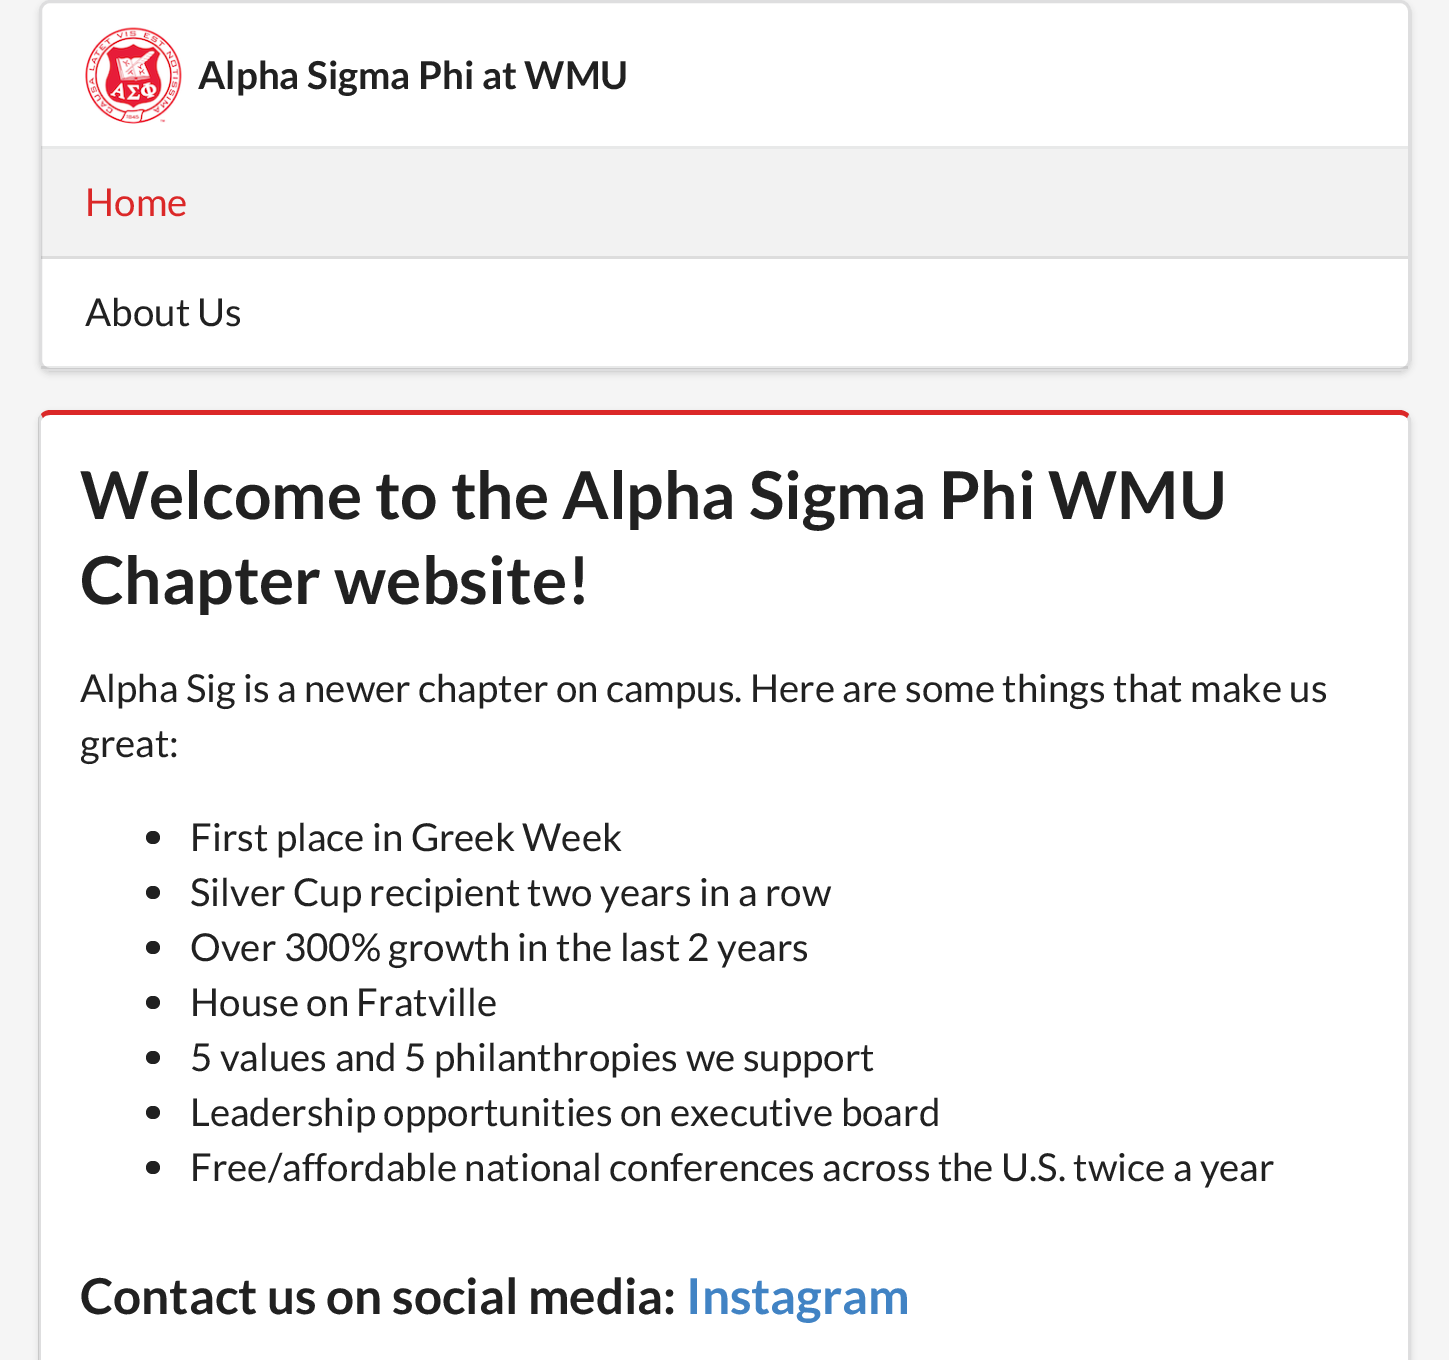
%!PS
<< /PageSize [1449 1360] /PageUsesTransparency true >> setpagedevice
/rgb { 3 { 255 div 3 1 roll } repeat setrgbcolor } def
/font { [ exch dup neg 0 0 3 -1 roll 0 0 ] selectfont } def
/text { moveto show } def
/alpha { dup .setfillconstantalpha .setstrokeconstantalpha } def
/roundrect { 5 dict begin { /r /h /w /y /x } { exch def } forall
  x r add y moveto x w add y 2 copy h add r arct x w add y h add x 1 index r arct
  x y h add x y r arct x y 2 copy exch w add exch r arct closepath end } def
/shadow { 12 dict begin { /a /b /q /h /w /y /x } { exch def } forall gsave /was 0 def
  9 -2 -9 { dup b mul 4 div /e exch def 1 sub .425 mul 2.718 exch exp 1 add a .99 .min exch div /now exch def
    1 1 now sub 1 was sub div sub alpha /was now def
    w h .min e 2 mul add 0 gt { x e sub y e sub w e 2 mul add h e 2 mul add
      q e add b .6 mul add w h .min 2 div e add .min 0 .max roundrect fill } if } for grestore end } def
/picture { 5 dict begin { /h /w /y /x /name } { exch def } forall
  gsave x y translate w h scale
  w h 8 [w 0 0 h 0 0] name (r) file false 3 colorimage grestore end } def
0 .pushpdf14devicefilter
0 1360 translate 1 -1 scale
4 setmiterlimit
245 245 245 rgb
0 0 1449 1360 rectfill
34 36 38 rgb
39 3 1372 371 11 3 0.15 shadow
255 255 255 rgb
39 0 1372 371 11 roundrect fill
0.15 alpha
34 36 38 rgb
3 setlinewidth
40.5 1.5 1369 368 9.5 roundrect stroke
1 alpha
(img_01.rgb) 85 27 97 97 picture
0.1 alpha
41 146 1367 3 rectfill
0.05 alpha
0 0 0 rgb
41 149 1367 110 rectfill
0.1 alpha
34 36 38 rgb
41 256 1367 3 rectfill
41 366 1367 3 rectfill
1 alpha
39 413 1372 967 11 3 0.15 shadow
255 255 255 rgb
39 410 1372 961 11 roundrect fill
219 40 40 rgb
50 410 moveto -4 0 -7 2 -9 4 rcurveto 2 4 rlineto 1 -2 4 -3 7 -3 rcurveto 1350 0 rlineto 3 0 5 1 7 3 rcurveto 2 -4 rlineto -2 -2 -6 -4 -9 -4 rcurveto closepath fill
0.15 alpha
34 36 38 rgb
1409 414 moveto 2 5 rlineto 0 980 rlineto 0 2 -2 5 -3 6 rcurveto -2 -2 rlineto 1 -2 2 -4 2 -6 rcurveto 0 -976 rlineto 0 -1 -1 -2 -1 -3 rcurveto closepath fill
38 418 moveto 3 -4 rlineto 2 4 rlineto -1 1 -2 2 -2 3 rcurveto 0 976 rlineto 0 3 1 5 3 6 rcurveto -2 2 rlineto -2 -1 -3 -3 -4 -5 rcurveto closepath fill
1 alpha
33 33 33 rgb
146 831 14 13 6.5 roundrect fill
146 886 14 13 6.5 roundrect fill
146 941 14 13 6.5 roundrect fill
146 996 14 13 6.5 roundrect fill
146 1051 14 13 6.5 roundrect fill
146 1106 14 13 6.5 roundrect fill
146 1161 14 13 6.5 roundrect fill
/Lato-Bold 38.5 font
(Alpha Sigma Phi at WMU) 198 89 text
/Lato-Regular 38.5 font
219 40 40 rgb
(Home) 85 216 text
33 33 33 rgb
(About Us) 85 326 text
/Lato-Bold 66 font
(Welcome to the Alpha Sigma Phi WMU) 80 519 text
(Chapter website!) 80 604 text
/Lato-Regular 38.5 font
(Alpha Sig is a newer chapter on campus. Here are some things that make us) 80 702 text
(great:) 80 757 text
(First place in Greek Week) 190 851 text
(Silver Cup recipient two years in a row) 190 906 text
(Over 300% growth in the last 2 years) 190 961 text
(House on Fratville) 190 1016 text
(5 values and 5 philanthropies we support) 190 1071 text
(Leadership opportunities on executive board) 190 1126 text
(Free/affordable national conferences across the U.S. twice a year) 190 1181 text
/Lato-Bold 49.5 font
(Contact us on social media:) 80 1314 text
65 131 196 rgb
(Instagram) 686 1314 text
.poppdf14devicefilter showpage
